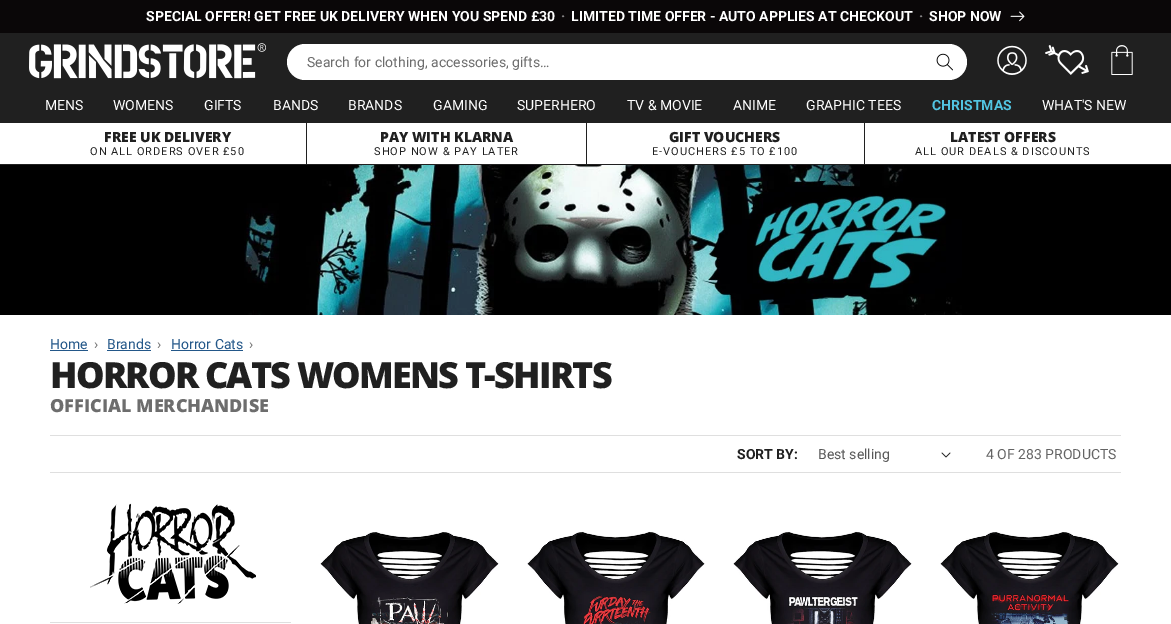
%!PS
<< /PageSize [1171 624] >> setpagedevice
/rgb { 3 { 255 div 3 1 roll } repeat setrgbcolor } def
/font { [ exch dup neg 0 0 3 -1 roll 0 0 ] selectfont } def
/text { moveto show } def
/roundrect { 5 dict begin { /r /h /w /y /x } { exch def } forall
  x r add y moveto x w add y 2 copy h add r arct x w add y h add x 1 index r arct
  x y h add x y r arct x y 2 copy exch w add exch r arct closepath end } def
/picture { 5 dict begin { /h /w /y /x /name } { exch def } forall
  gsave x y translate w h scale
  w h 8 [w 0 0 h 0 0] name (r) file false 3 colorimage grestore end } def
0 624 translate 1 -1 scale
4 setmiterlimit
255 255 255 rgb
0 0 1171 624 rectfill
10 7 8 rgb
0 0 1171 33 rectfill
(img_01.rgb) 1010 11 15 11 picture
32 32 32 rgb
0 33 1171 90 rectfill
(img_02.rgb) 29 43 237 36 picture
255 255 255 rgb
287 44 680 36 18 roundrect fill
(img_03.rgb) 936 53 17 18 picture
(img_04.rgb) 997 45 30 30 picture
(img_05.rgb) 1045 45 44 30 picture
(img_06.rgb) 1111 45 22 30 picture
32 32 32 rgb
0 164 1171 1 rectfill
306 123 1 41 rectfill
586 123 1 41 rectfill
864 123 1 41 rectfill
0 0 0 rgb
0 165 1171 150 rectfill
(img_07.rgb) 244 165 718 150 picture
35 87 137 rgb
50 350 38 1 rectfill
107 350 44 1 rectfill
171 350 72 1 rectfill
223 223 223 rgb
50 435 1071 1 rectfill
50 472 1071 1 rectfill
(img_08.rgb) 941 452 10 6 picture
(img_09.rgb) 90 503 166 101 picture
50 622 241 1 rectfill
(img_10.rgb) 320 532 179 92 picture
(img_11.rgb) 527 531 178 93 picture
(img_12.rgb) 733 531 179 93 picture
(img_13.rgb) 940 532 179 92 picture
/Roboto-Bold 14 font
255 255 255 rgb
(SPECIAL OFFER! GET FREE UK DELIVERY WHEN YOU SPEND £30) 146 21 text
133 131 132 rgb
(·) 561 21 text
255 255 255 rgb
(LIMITED TIME OFFER - AUTO APPLIES AT CHECKOUT) 571 21 text
133 131 132 rgb
(·) 919 21 text
255 255 255 rgb
(SHOP NOW) 929 21 text
/Roboto-Regular 14 font
109 109 109 rgb
(Search for clothing, accessories, gifts…) 307 67 text
255 255 255 rgb
(MENS) 45 110 text
(WOMENS) 113 110 text
(GIFTS) 204 110 text
(BANDS) 273 110 text
(BRANDS) 348 110 text
(GAMING) 433 110 text
(SUPERHERO) 517 110 text
(TV & MOVIE) 627 110 text
(ANIME) 733 110 text
(GRAPHIC TEES) 806 110 text
/Roboto-Bold 14 font
82 196 225 rgb
(CHRISTMAS) 932 110 text
/Roboto-Regular 14 font
255 255 255 rgb
(WHAT'S NEW) 1042 110 text
/OpenSans-ExtraBold 14 font
32 32 32 rgb
(FREE UK DELIVERY) 104 142 text
/Roboto-Regular 11 font
90 155 moveto 1 0 (ON ALL ORDERS OVER £50) ashow
/OpenSans-ExtraBold 14 font
(PAY WITH KLARNA) 380 142 text
/Roboto-Regular 11 font
374 155 moveto 1 0 (SHOP NOW & PAY LATER) ashow
/OpenSans-ExtraBold 14 font
(GIFT VOUCHERS) 669 142 text
/Roboto-Regular 11 font
652 155 moveto 1 0 (E-VOUCHERS £5 TO £100) ashow
/OpenSans-ExtraBold 14 font
(LATEST OFFERS) 950 142 text
/Roboto-Regular 11 font
915 155 moveto 1 0 (ALL OUR DEALS & DISCOUNTS) ashow
/Roboto-Regular 14 font
35 87 137 rgb
(Home) 50 349 text
109 109 109 rgb
(›) 94 349 text
35 87 137 rgb
(Brands) 107 349 text
109 109 109 rgb
(›) 157 349 text
35 87 137 rgb
(Horror Cats) 171 349 text
109 109 109 rgb
(›) 249 349 text
/OpenSans-ExtraBold 36 font
32 32 32 rgb
50 388 moveto -1.8 0 (HORROR CATS WOMENS T-SHIRTS) ashow
/OpenSans-ExtraBold 18 font
109 109 109 rgb
(OFFICIAL MERCHANDISE) 50 412 text
/Roboto-Bold 14 font
32 32 32 rgb
(SORT BY:) 737 459 text
/Roboto-Regular 14 font
88 88 88 rgb
(Best selling) 818 459 text
100 100 100 rgb
(4 OF 283 PRODUCTS) 986 459 text
showpage
